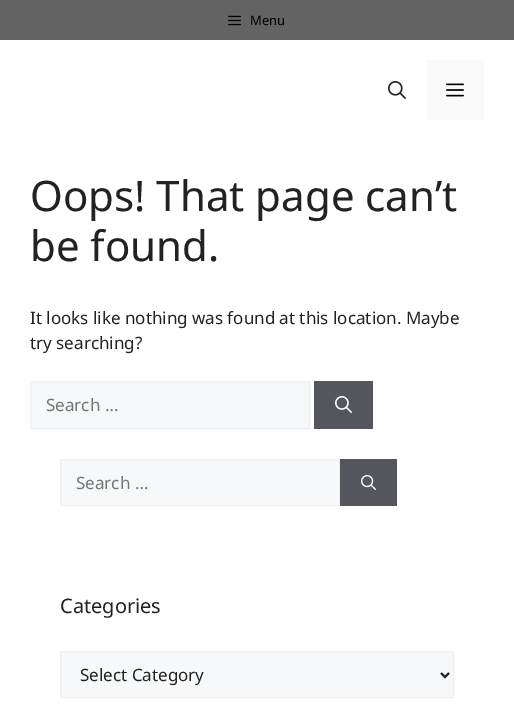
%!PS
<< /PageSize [514 728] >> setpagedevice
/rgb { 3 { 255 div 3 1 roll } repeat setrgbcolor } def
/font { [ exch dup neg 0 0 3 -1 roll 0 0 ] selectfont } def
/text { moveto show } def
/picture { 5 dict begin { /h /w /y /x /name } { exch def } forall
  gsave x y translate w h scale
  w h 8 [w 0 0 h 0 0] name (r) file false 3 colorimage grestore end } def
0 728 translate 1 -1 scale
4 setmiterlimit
255 255 255 rgb
0 0 514 728 rectfill
99 99 99 rgb
0 0 514 40 rectfill
(img_01.rgb) 228 15 13 11 picture
(img_02.rgb) 388 81 18 18 picture
250 250 250 rgb
426 60 58 60 rectfill
(img_03.rgb) 446 83 18 14 picture
247 248 249 rgb
30.5 381.5 moveto 279 0 rlineto 0 47 rlineto -279 0 rlineto closepath gsave fill grestore
240 240 240 rgb
stroke
85 85 94 rgb
314 381 59 48 rectfill
(img_04.rgb) 335 396 17 17 picture
247 248 249 rgb
60.5 459.5 moveto 279 0 rlineto 0 46 rlineto -279 0 rlineto closepath gsave fill grestore
240 240 240 rgb
stroke
85 85 94 rgb
340 459 57 47 rectfill
(img_05.rgb) 361 475 15 15 picture
247 248 249 rgb
60.5 651.5 moveto 393 0 rlineto 0 46 rlineto -393 0 rlineto closepath gsave fill grestore
240 240 240 rgb
stroke
34 34 34 rgb
2 setlinewidth
441 673 moveto 4 4 rlineto 4 -4 rlineto stroke
/NotoSans-Regular 13 font
0 0 0 rgb
(Menu) 250 25 text
/NotoSans-Regular 42 font
34 34 34 rgb
(Oops! That page can’t) 30 211 text
(be found.) 30 261 text
/NotoSans-Regular 17 font
(It looks like nothing was found at this location. Maybe) 30 324 text
(try searching?) 30 349 text
117 117 117 rgb
(Search …) 46 411 text
(Search …) 76 489 text
/NotoSans-Regular 20 font
34 34 34 rgb
(Categories) 60 613 text
/NotoSans-Regular 17 font
(Select Category) 80 681 text
showpage
